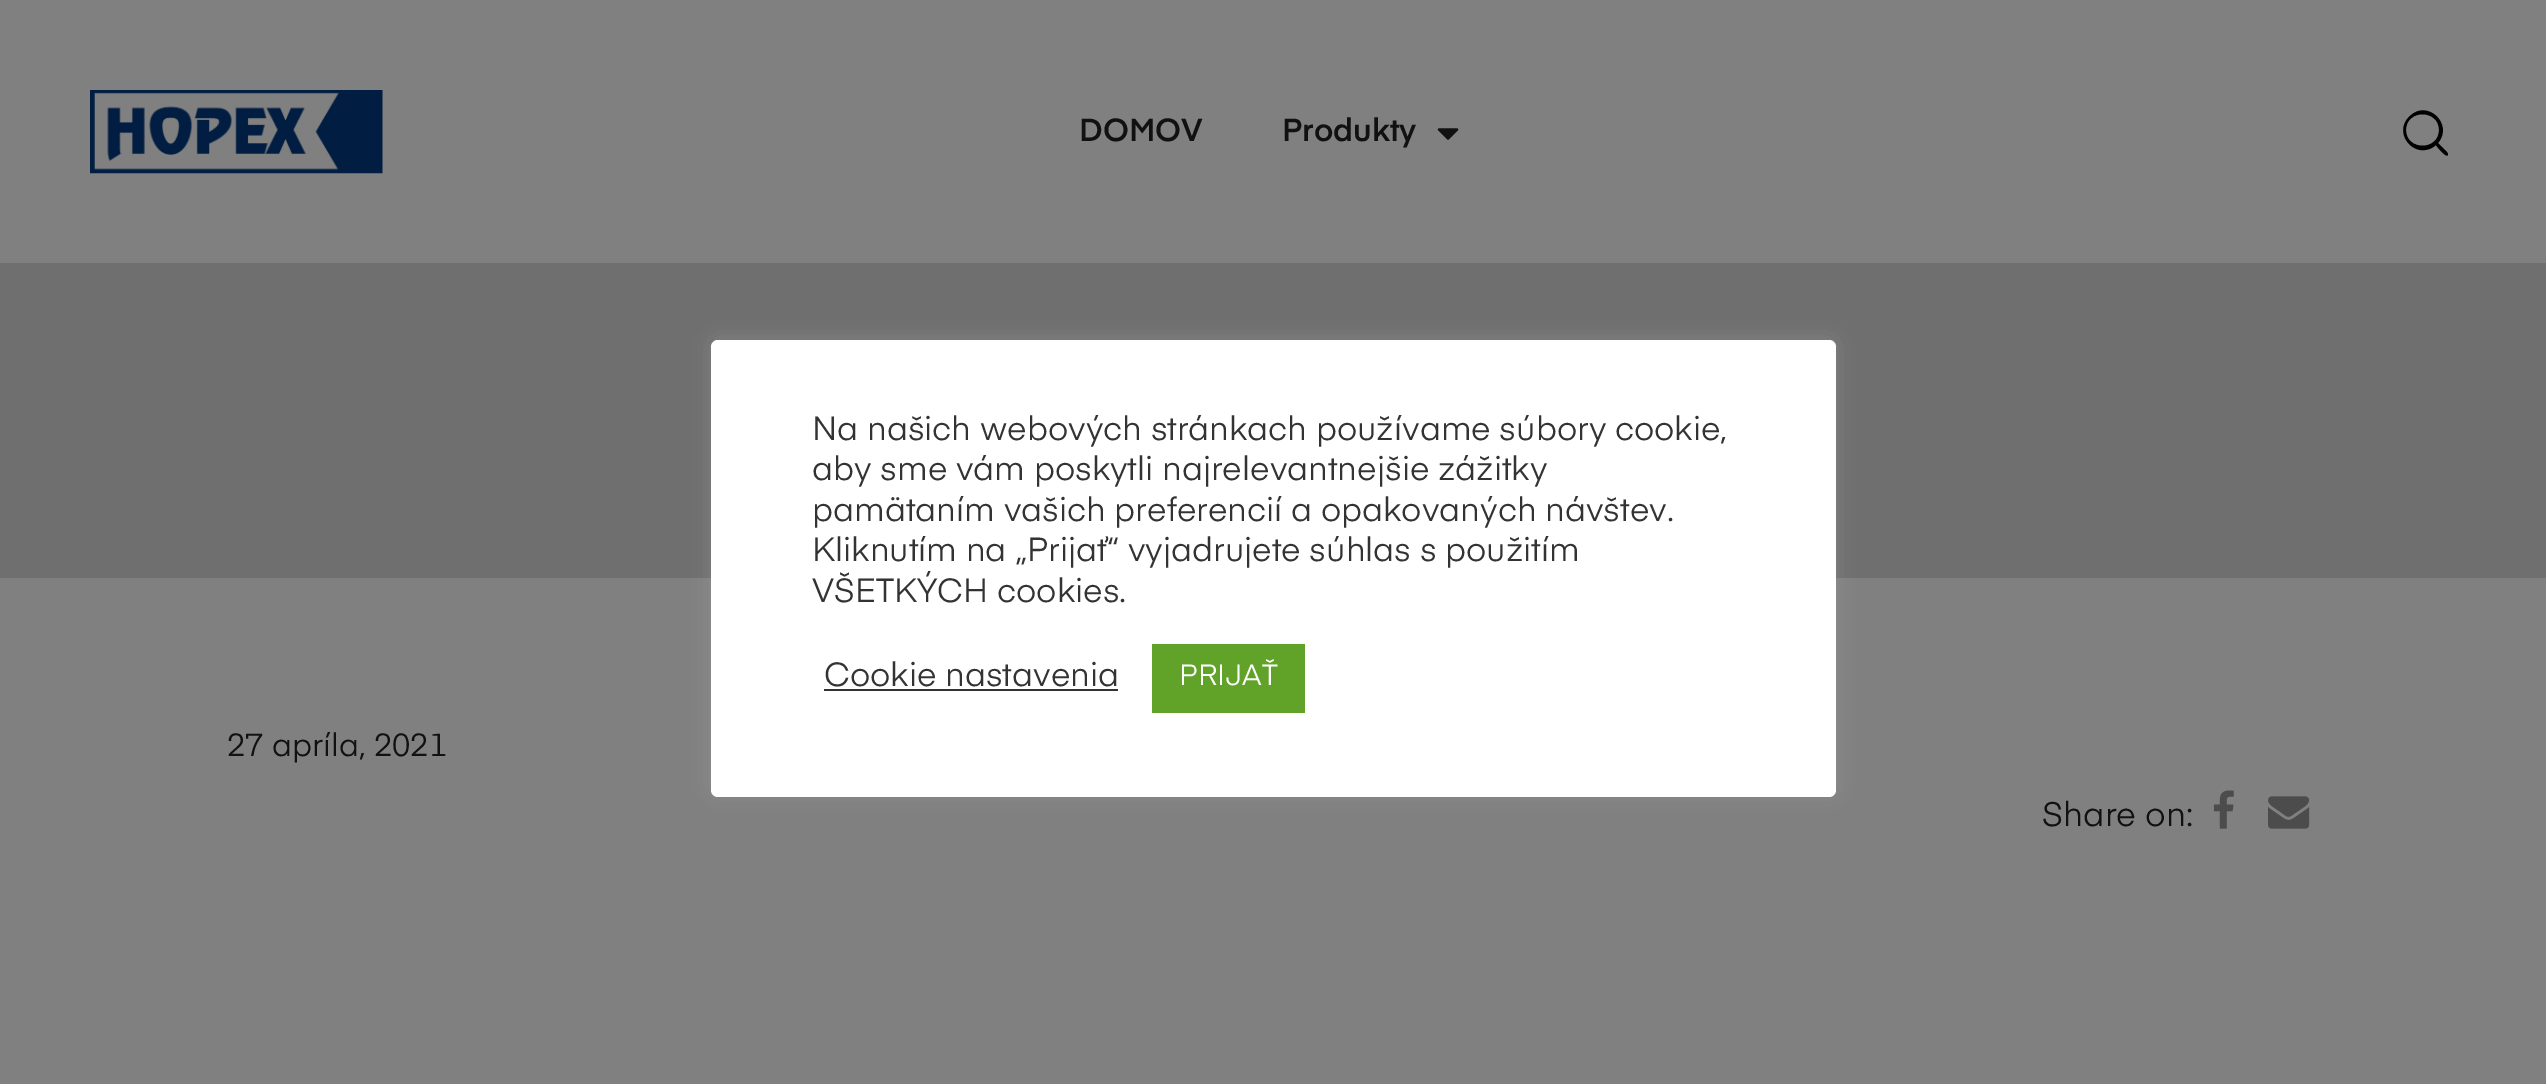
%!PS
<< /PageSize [2546 1084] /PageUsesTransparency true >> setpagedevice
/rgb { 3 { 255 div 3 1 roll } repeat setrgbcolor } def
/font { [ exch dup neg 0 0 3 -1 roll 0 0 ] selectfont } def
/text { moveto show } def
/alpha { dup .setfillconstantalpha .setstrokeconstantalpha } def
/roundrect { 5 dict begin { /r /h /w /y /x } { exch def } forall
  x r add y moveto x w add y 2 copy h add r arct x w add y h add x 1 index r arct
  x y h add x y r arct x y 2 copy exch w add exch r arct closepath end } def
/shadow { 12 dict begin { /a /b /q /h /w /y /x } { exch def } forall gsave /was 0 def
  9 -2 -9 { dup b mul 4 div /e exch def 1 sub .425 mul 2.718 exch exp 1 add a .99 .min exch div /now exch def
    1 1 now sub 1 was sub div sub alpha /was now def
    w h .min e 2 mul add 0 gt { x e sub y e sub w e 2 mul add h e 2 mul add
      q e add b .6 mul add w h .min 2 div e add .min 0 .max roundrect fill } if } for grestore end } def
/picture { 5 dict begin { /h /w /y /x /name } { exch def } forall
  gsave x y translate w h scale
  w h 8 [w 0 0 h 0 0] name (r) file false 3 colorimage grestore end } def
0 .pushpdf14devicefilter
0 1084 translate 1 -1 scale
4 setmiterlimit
128 128 128 rgb
0 0 2546 1084 rectfill
(img_01.rgb) 90 90 293 84 picture
(img_02.rgb) 1437 128 22 12 picture
0 0 0 rgb
2447 152 moveto -9 -9 rlineto 16 -19 -11 -44 -28 -27 rcurveto -19 17 6 46 26 29 rcurveto 1 2 12 15 12 9 rcurveto closepath 2406 130 moveto 0 -21 33 -21 33 0 rcurveto 0 21 -33 21 -33 0 rcurveto closepath fill
111 111 111 rgb
0 263 2546 315 rectfill
(img_03.rgb) 2213 790 21 39 picture
(img_04.rgb) 2268 796 42 33 picture
172 171 171 rgb
711 338 1125 456 7 11 0.3 shadow
255 255 255 rgb
711 340 1125 457 7 roundrect fill
51 51 51 rgb
824 689 294 2 rectfill
97 162 41 rgb
1152 644 153 69 rectfill
/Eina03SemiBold-SemiBold 31.5 font
17 17 17 rgb
(DOMOV) 1079 141 text
(Produkty) 1282 141 text
/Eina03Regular-Regular 31.5 font
(27 apríla, 2021) 227 756 text
/Eina03Regular-Regular 33.5 font
(Share on:) 2042 826 text
/Eina03Regular-Regular 33 font
51 51 51 rgb
(Na našich webových stránkach používame súbory cookie,) 812 440 text
(aby sme vám poskytli najrelevantnejšie zážitky) 812 480 text
(pamätaním vašich preferencií a opakovaných návštev.) 812 521 text
(Kliknutím na „Prijať“ vyjadrujete súhlas s použitím) 812 561 text
(VŠETKÝCH cookies.) 812 602 text
(Cookie nastavenia) 824 686 text
/Eina03Regular-Regular 29 font
255 255 255 rgb
(PRIJAŤ) 1179 685 text
.poppdf14devicefilter showpage
